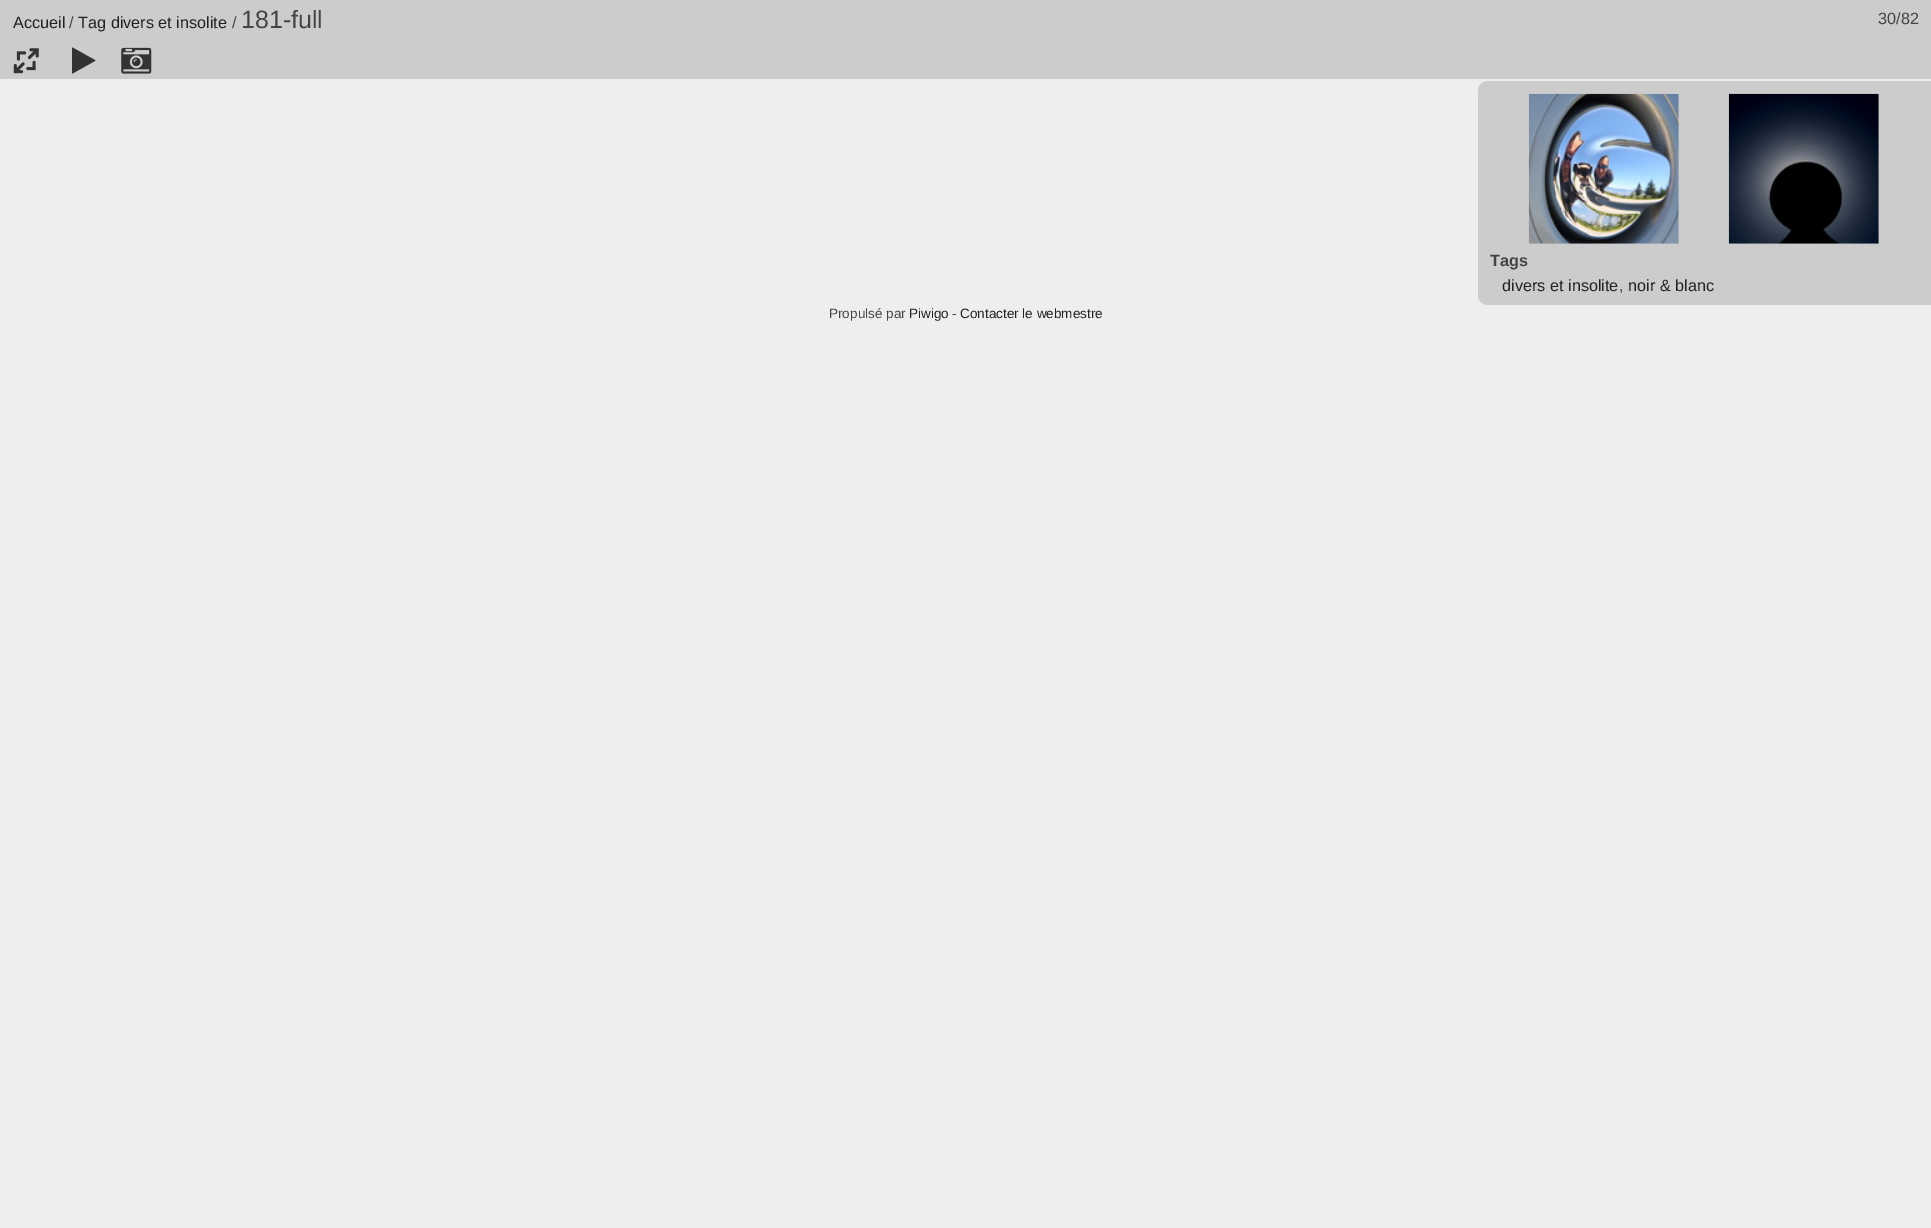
%!PS
<< /PageSize [1931 1228] >> setpagedevice
/rgb { 3 { 255 div 3 1 roll } repeat setrgbcolor } def
/font { [ exch dup neg 0 0 3 -1 roll 0 0 ] selectfont } def
/text { moveto show } def
/picture { 5 dict begin { /h /w /y /x /name } { exch def } forall
  gsave x y translate w h scale
  w h 8 [w 0 0 h 0 0] name (r) file false 3 colorimage grestore end } def
0 1228 translate 1 -1 scale
4 setmiterlimit
238 238 238 rgb
0 0 1931 1228 rectfill
204 204 204 rgb
0 0 1931 79 rectfill
(img_01.rgb) 13 48 26 26 picture
(img_02.rgb) 121 47 31 27 picture
1488 81 moveto 443 0 rlineto 0 224 rlineto -443 0 rlineto -5.5 0 -10 -4.5 -10 -10 rcurveto 0 -204 rlineto 0 -5.5 4.5 -10 10 -10 rcurveto closepath fill
(img_03.rgb) 1528 93 151 151 picture
(img_04.rgb) 1728 93 151 151 picture
/LiberationSans-Regular 16.25 font
34 34 34 rgb
(Accueil) 13 28 text
68 68 68 rgb
(/) 69 28 text
34 34 34 rgb
(Tag divers et insolite) 78 28 text
68 68 68 rgb
(/) 232 28 text
/LiberationSans-Regular 25 font
(181-full) 241 28 text
/LiberationSans-Regular 16.25 font
(30/82) 1878 24 text
/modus-Regular 30 font
51 51 51 rgb
(▶) 72 71 text
/LiberationSans-Bold 16.25 font
68 68 68 rgb
(Tags) 1490 266 text
/LiberationSans-Regular 16.25 font
34 34 34 rgb
(divers et insolite) 1502 291 text
68 68 68 rgb
(,) 1619 291 text
34 34 34 rgb
(noir & blanc) 1628 291 text
/LiberationSans-Regular 13.5 font
68 68 68 rgb
(Propulsé par) 829 318 text
34 34 34 rgb
(Piwigo) 909 318 text
68 68 68 rgb
(-) 952 318 text
34 34 34 rgb
(Contacter le webmestre) 960 318 text
showpage
